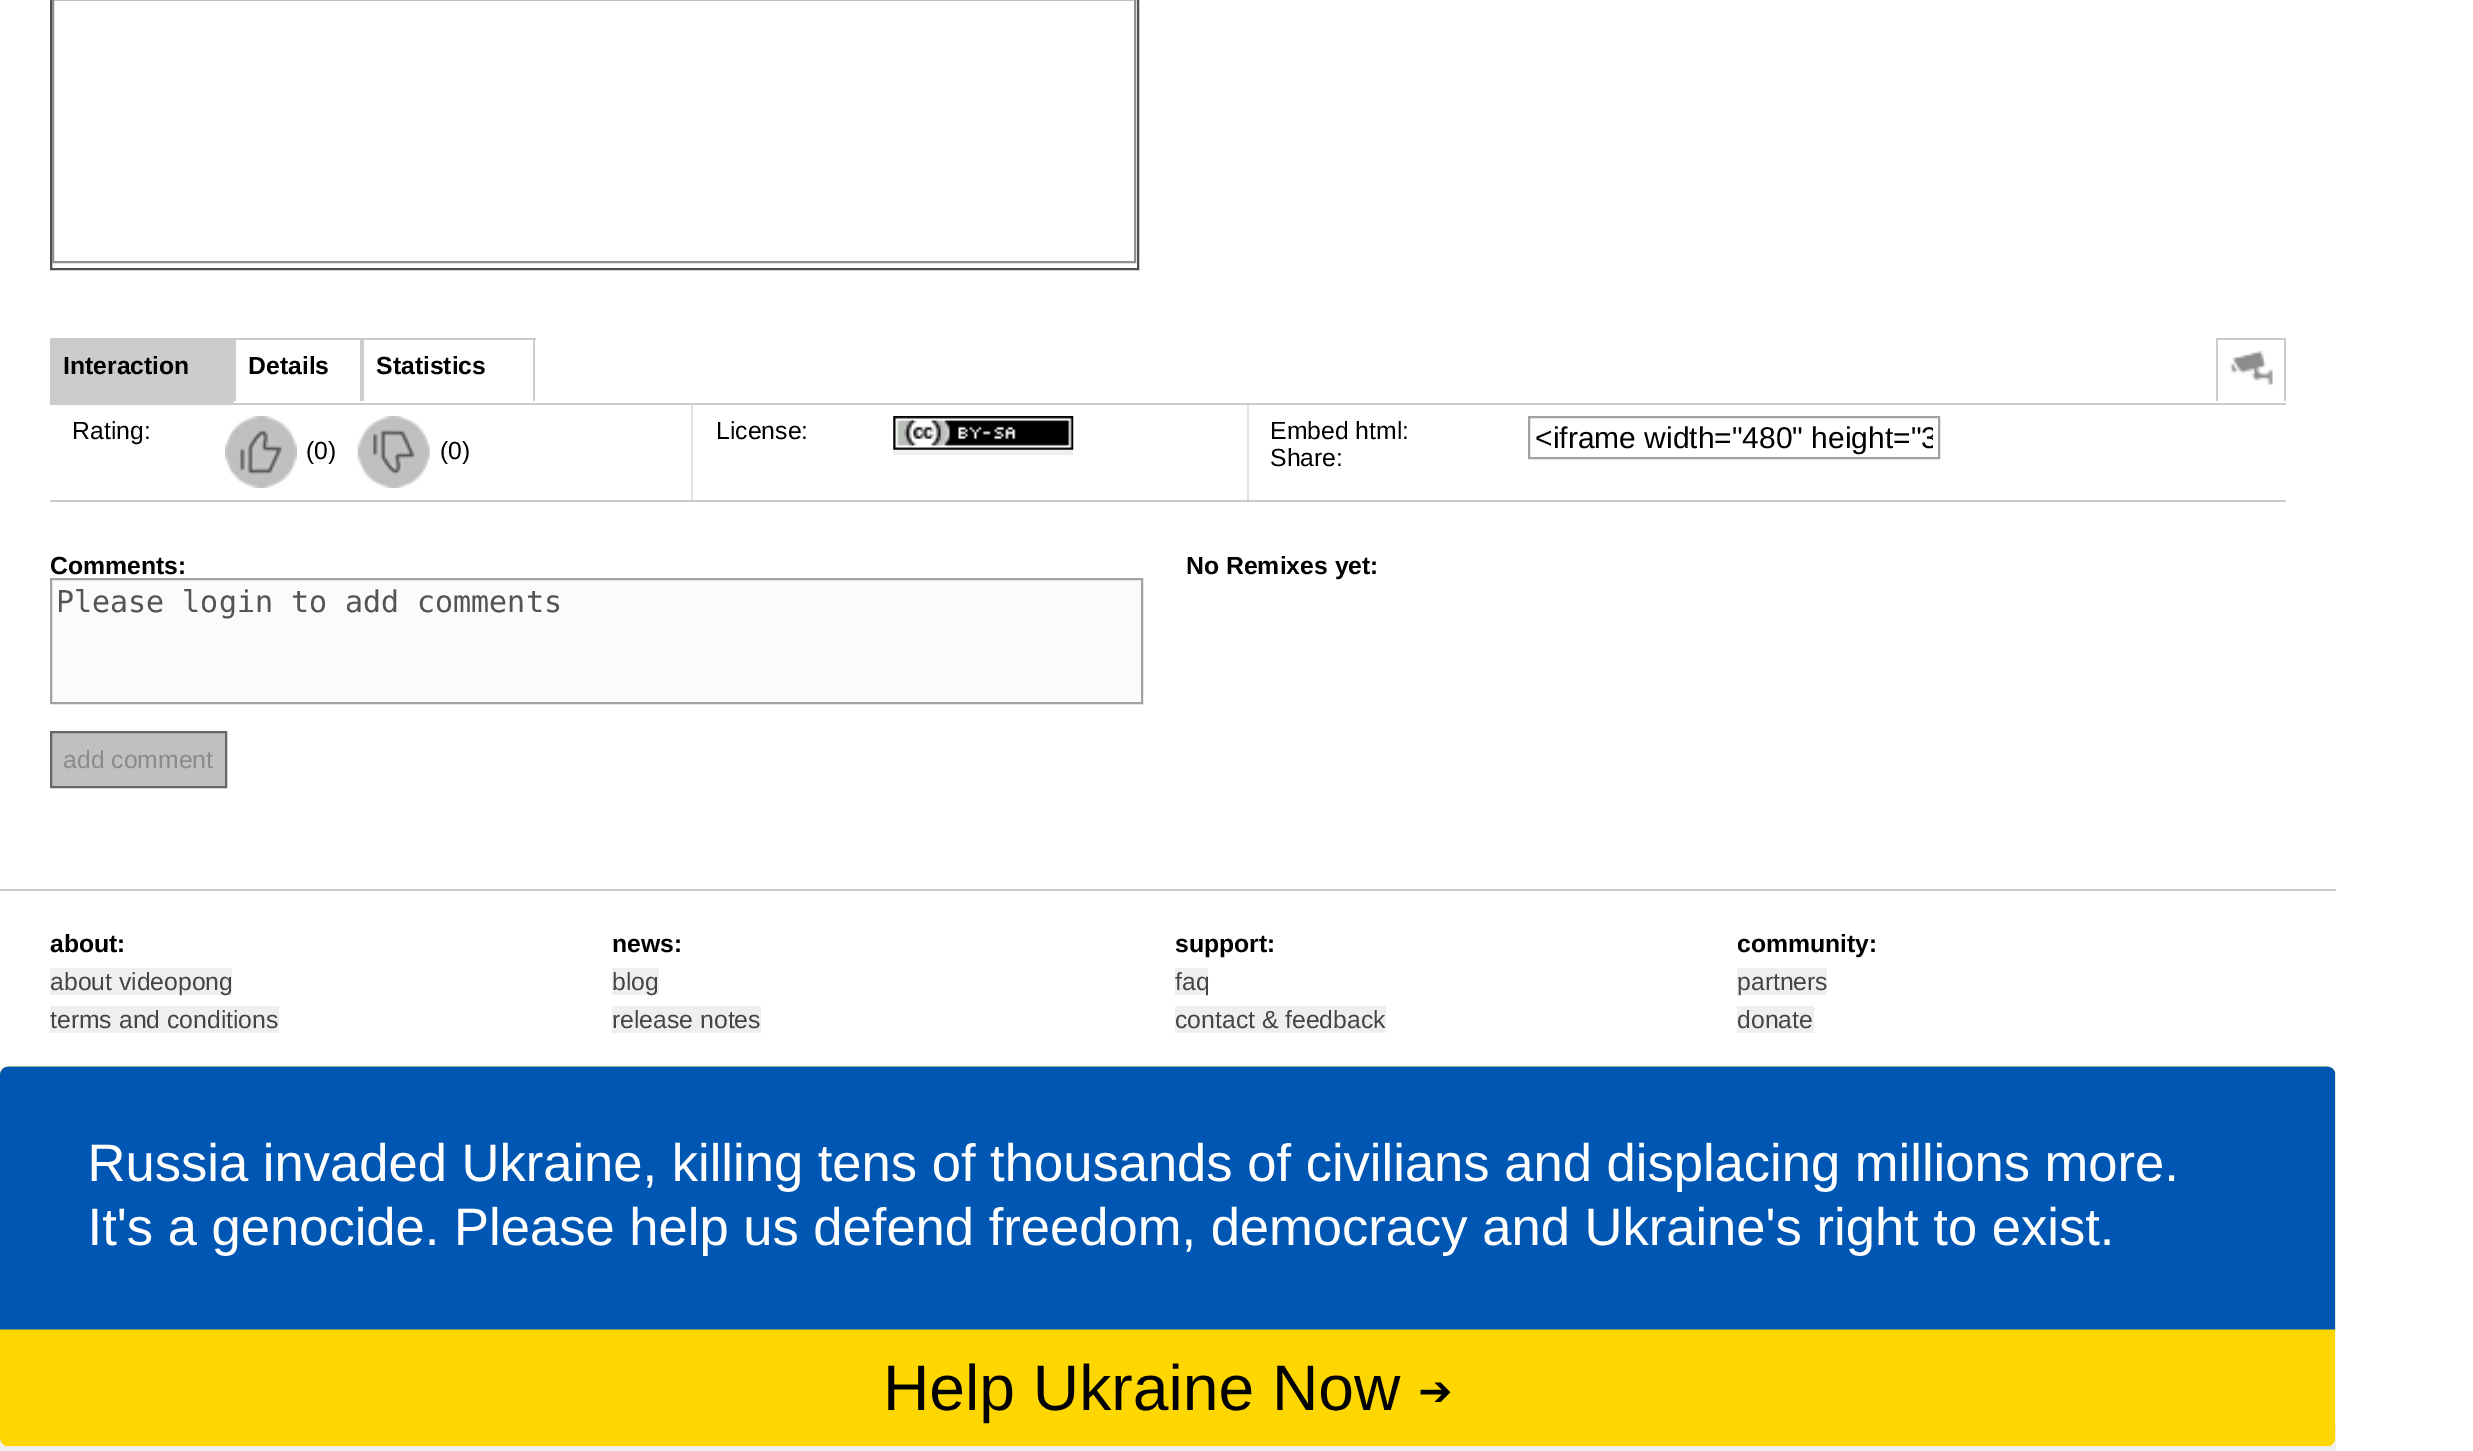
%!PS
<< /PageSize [2473 1451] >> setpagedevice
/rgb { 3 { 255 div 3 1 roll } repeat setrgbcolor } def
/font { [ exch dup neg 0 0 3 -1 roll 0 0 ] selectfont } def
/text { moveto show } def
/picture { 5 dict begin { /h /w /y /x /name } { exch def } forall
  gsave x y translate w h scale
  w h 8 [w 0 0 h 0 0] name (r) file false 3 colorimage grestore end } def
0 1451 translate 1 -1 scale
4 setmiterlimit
255 255 255 rgb
0 0 2473 1451 rectfill
79 79 79 rgb
2 setlinewidth
51 -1 1087 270 rectstroke
144 144 144 rgb
53 -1 1082 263 rectstroke
204 204 204 rgb
50 338 184 65 rectfill
234 338 302 2 rectfill
360 338 4 63 rectfill
234 338 2 63 rectfill
533 338 2 63 rectfill
2216 338 70 2 rectfill
2284 338 2 63 rectfill
2216 338 2 63 rectfill
(img_01.rgb) 2229 350 44 35 picture
50 403 2236 2 rectfill
50 500 2236 2 rectfill
226 226 226 rgb
691 405 2 95 rectfill
(img_02.rgb) 225 416 72 72 picture
(img_03.rgb) 357 416 73 72 picture
1247 405 2 95 rectfill
(img_04.rgb) 893 416 181 34 picture
239 239 239 rgb
893 450 180 5 rectfill
162 162 162 rgb
1529 417 410 41 rectstroke
251 251 251 rgb
51 579 moveto 1091 0 rlineto 0 124 rlineto -1091 0 rlineto closepath gsave fill grestore
162 162 162 rgb
stroke
192 192 192 rgb
51 732 moveto 175 0 rlineto 0 55 rlineto -175 0 rlineto closepath gsave fill grestore
102 102 102 rgb
stroke
204 204 204 rgb
0 889 2336 2 rectfill
239 239 239 rgb
50 968 182 27 rectfill
50 1006 229 27 rectfill
612 968 47 27 rectfill
612 1006 149 27 rectfill
1175 968 33 27 rectfill
1175 1006 211 27 rectfill
1737 968 90 27 rectfill
1737 1006 77 27 rectfill
0 1424 2336 27 rectfill
(img_05.rgb) 0 1066 2336 381 picture
/LiberationSans-Bold 24.75 font
0 0 0 rgb
(Interaction) 63 374 text
(Details) 248 374 text
(Statistics) 376 374 text
/LiberationSans-Regular 24.75 font
(Rating:) 72 439 text
(\(0\)) 306 459 text
(\(0\)) 440 459 text
(License:) 716 439 text
(Embed html:) 1270 439 text
(Share:) 1270 466 text
gsave
1535 421 398 34 rectclip
/LiberationSans-Regular 30 font
(<iframe width="480" height="3) 1535 448 text
grestore
/LiberationSans-Bold 24.75 font
(Comments:) 50 574 text
/DejaVuSansMono-Regular 30 font
84 84 84 rgb
(Please login to add comments) 56 612 text
/LiberationSans-Regular 24.75 font
139 139 139 rgb
(add comment) 63 768 text
/LiberationSans-Bold 24.75 font
0 0 0 rgb
(No Remixes yet:) 1186 574 text
(about:) 50 952 text
/LiberationSans-Regular 24.75 font
68 68 68 rgb
(about videopong) 50 990 text
(terms and conditions) 50 1028 text
/LiberationSans-Bold 24.75 font
0 0 0 rgb
(news:) 612 952 text
/LiberationSans-Regular 24.75 font
68 68 68 rgb
(blog) 612 990 text
(release notes) 612 1028 text
/LiberationSans-Bold 24.75 font
0 0 0 rgb
(support:) 1175 952 text
/LiberationSans-Regular 24.75 font
68 68 68 rgb
(faq) 1175 990 text
(contact & feedback) 1175 1028 text
/LiberationSans-Bold 24.75 font
0 0 0 rgb
(community:) 1737 952 text
/LiberationSans-Regular 24.75 font
68 68 68 rgb
(partners) 1737 990 text
(donate) 1737 1028 text
showpage
